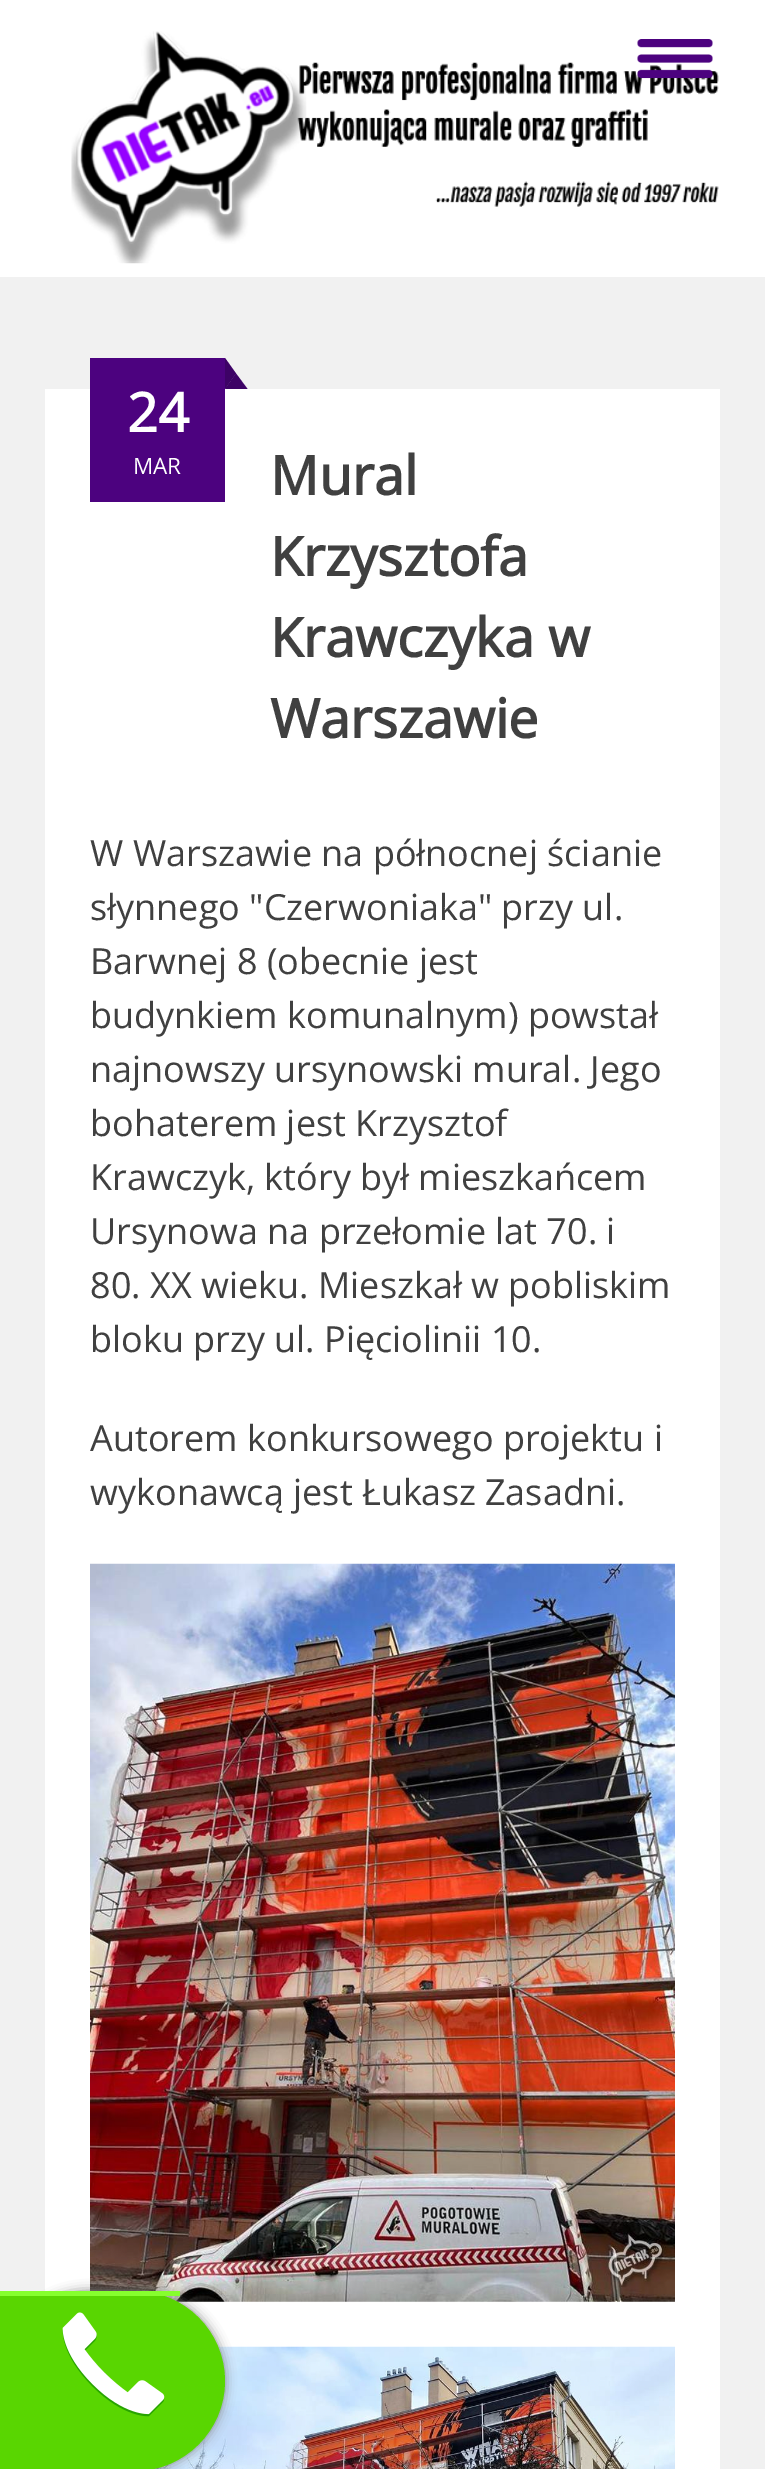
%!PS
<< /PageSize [765 2469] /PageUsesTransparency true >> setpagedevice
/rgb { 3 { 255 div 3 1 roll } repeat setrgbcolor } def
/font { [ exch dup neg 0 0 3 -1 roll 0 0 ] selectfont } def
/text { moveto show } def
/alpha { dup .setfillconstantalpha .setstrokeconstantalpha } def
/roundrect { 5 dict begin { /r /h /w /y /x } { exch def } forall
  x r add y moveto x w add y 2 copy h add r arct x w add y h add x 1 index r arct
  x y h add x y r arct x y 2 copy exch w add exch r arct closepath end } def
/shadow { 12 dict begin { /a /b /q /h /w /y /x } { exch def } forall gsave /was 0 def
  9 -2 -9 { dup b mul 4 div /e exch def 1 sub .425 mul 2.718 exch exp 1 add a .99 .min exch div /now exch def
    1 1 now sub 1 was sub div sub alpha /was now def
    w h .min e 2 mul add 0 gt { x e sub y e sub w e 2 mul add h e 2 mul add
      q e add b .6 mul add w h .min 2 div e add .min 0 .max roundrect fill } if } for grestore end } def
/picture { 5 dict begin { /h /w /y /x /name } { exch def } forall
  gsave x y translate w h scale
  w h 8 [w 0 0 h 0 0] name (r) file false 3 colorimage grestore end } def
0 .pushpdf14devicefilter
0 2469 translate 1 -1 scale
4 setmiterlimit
241 241 241 rgb
0 0 765 2469 rectfill
255 255 255 rgb
0 0 765 277 rectfill
(img_01.rgb) 71 31 648 233 picture
(img_02.rgb) 637 39 76 40 picture
45 389 675 2080 rectfill
76 2 127 rgb
90 358 135 144 rectfill
61 2 102 rgb
247.5 389 moveto -22.5 0 rlineto 11 -15.5 rlineto closepath fill
225 389 moveto 0 -31 rlineto 11 15.5 rlineto closepath fill
(img_03.rgb) 90 1563 585 739 picture
(img_04.rgb) 154 2346 521 123 picture
136 136 136 rgb
0 2291 225 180 90 5.5 1 shadow
89 214 1 rgb
0 2291 moveto 135 0 rlineto 49.5 0 90 40.5 90 90 rcurveto 0 49.5 -40.5 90 -90 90 rcurveto -135 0 rlineto closepath fill
(img_05.rgb) 62 2312 103 105 picture
134 255 46 rgb
0 2291 180 5 rectfill
/OpenSans-Bold 54 font
255 255 255 rgb
(24) 127 432 text
/OpenSans-Regular 22.5 font
(MAR) 133 474 text
/OpenSans-Bold 54 font
64 64 64 rgb
(Mural) 270 495 text
(Krzysztofa) 270 576 text
(Krawczyka w) 270 657 text
(Warszawie) 270 738 text
/OpenSans-Regular 36 font
(W Warszawie na północnej ścianie) 90 866 text
(słynnego "Czerwoniaka" przy ul.) 90 920 text
(Barwnej 8 \(obecnie jest) 90 974 text
(budynkiem komunalnym\) powstał) 90 1028 text
(najnowszy ursynowski mural. Jego) 90 1082 text
(bohaterem jest Krzysztof) 90 1136 text
(Krawczyk, który był mieszkańcem) 90 1190 text
(Ursynowa na przełomie lat 70. i) 90 1244 text
(80. XX wieku. Mieszkał w pobliskim) 90 1298 text
(bloku przy ul. Pięciolinii 10.) 90 1352 text
(Autorem konkursowego projektu i) 90 1451 text
(wykonawcą jest Łukasz Zasadni.) 90 1505 text
.poppdf14devicefilter showpage
